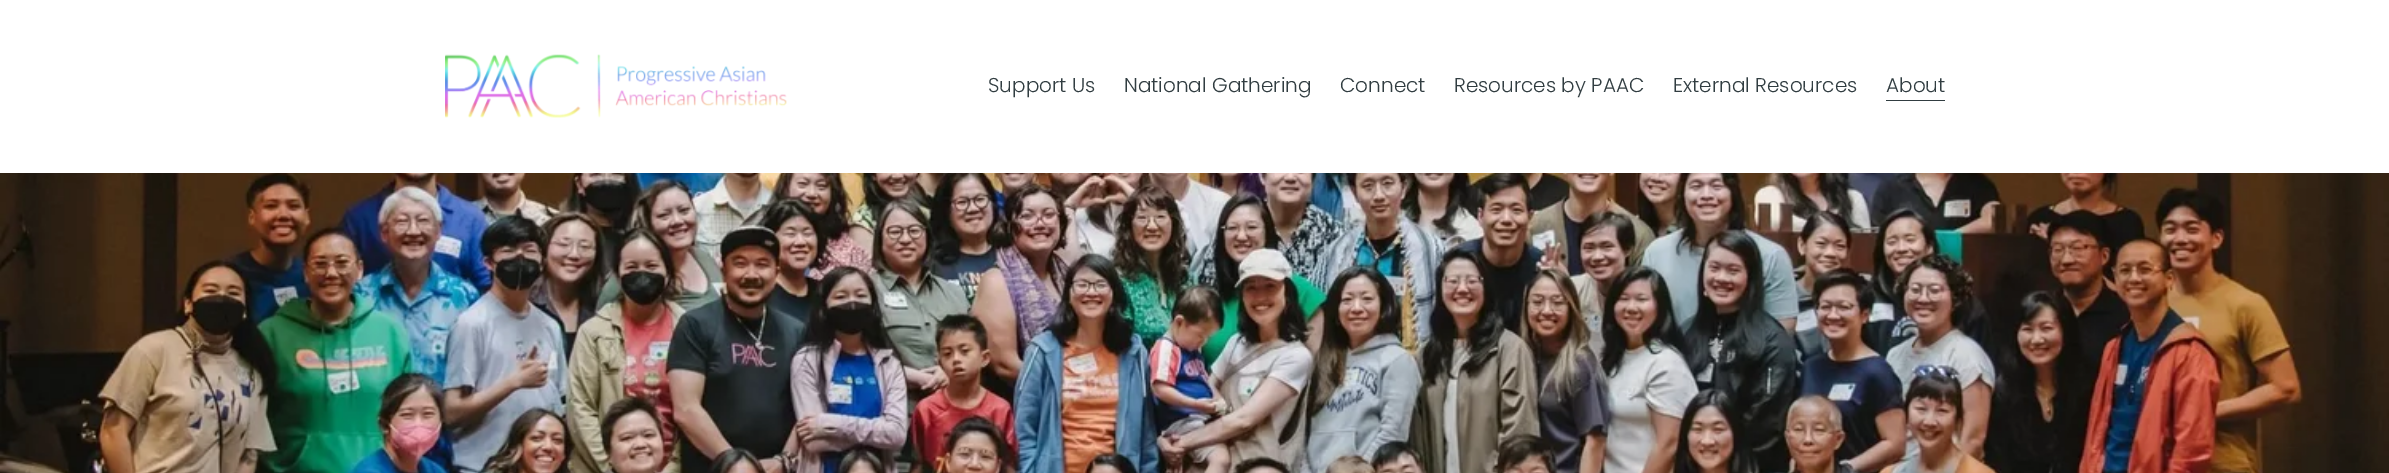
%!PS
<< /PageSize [2389 473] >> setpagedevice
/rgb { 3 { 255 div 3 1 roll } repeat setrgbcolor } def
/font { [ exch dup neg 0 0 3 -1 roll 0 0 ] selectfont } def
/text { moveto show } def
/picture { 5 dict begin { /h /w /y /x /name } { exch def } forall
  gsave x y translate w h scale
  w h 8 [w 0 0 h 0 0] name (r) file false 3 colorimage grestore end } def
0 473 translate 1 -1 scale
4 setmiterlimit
255 255 255 rgb
0 0 2389 473 rectfill
(img_01.rgb) 445 54 342 64 picture
49 61 65 rgb
1886 100 59 1 rectfill
(img_02.rgb) 0 173 2389 300 picture
/Poppins-Light 20 font
(Support Us) 988 92 text
(National Gathering) 1124 92 text
(Connect) 1340 92 text
(Resources by PAAC) 1454 92 text
(External Resources) 1673 92 text
(About) 1886 92 text
showpage
